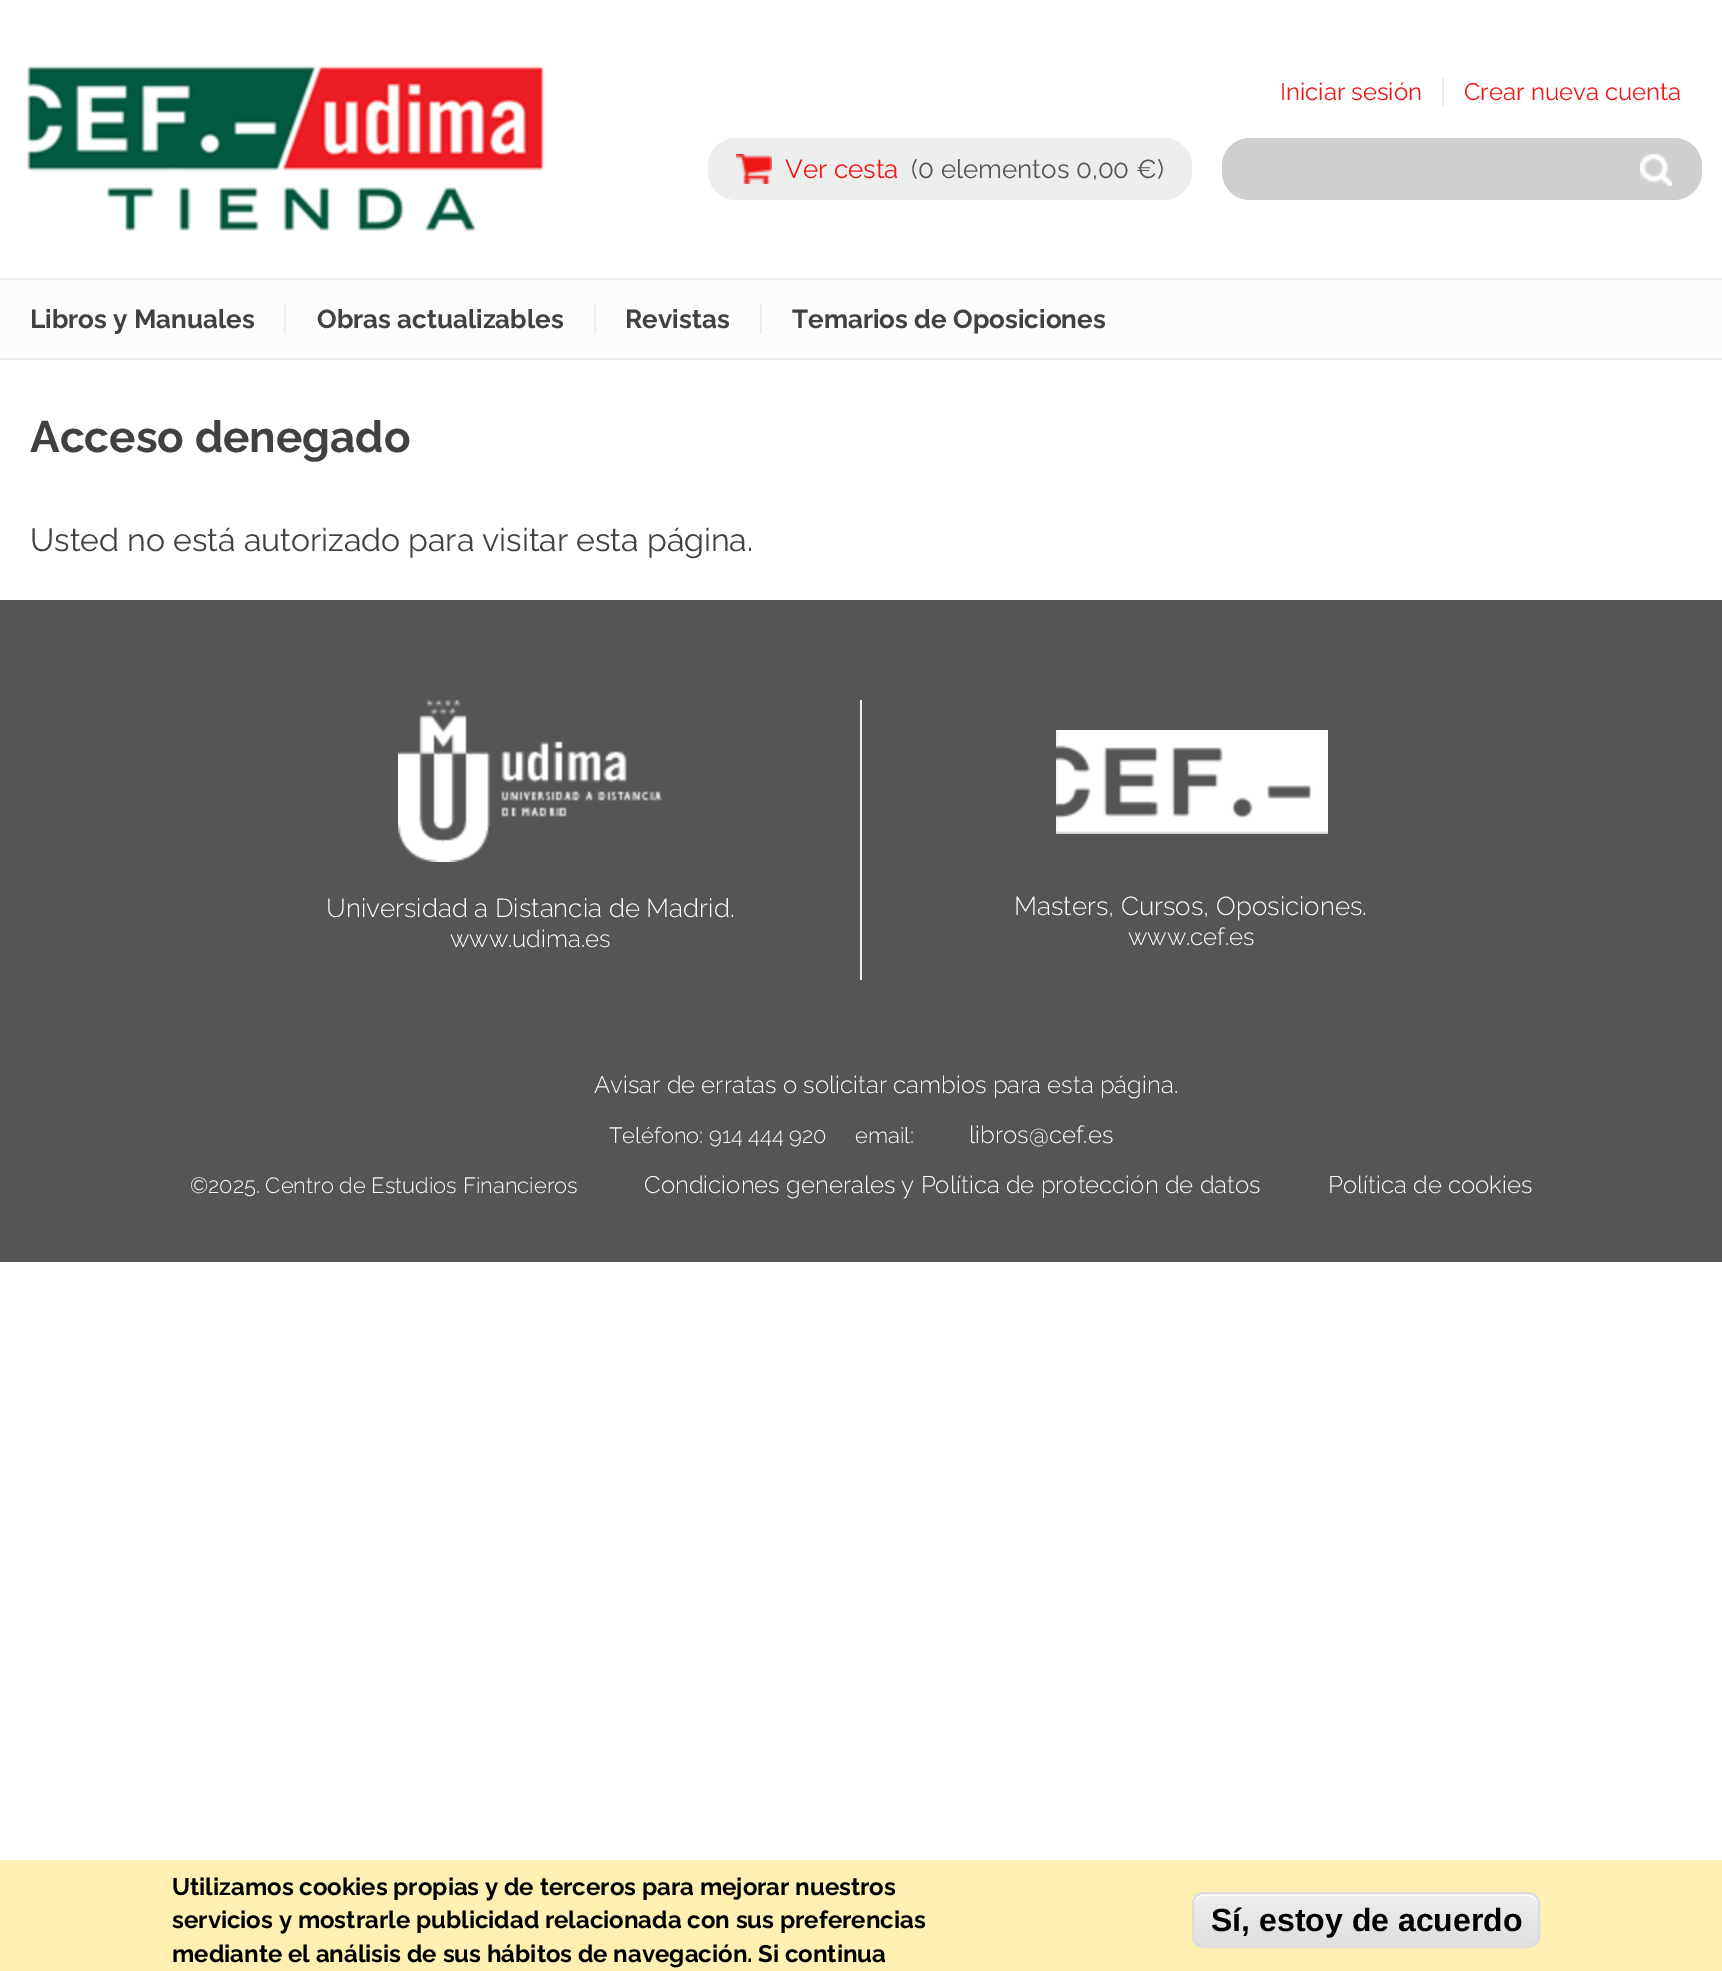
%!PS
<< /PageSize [1722 1971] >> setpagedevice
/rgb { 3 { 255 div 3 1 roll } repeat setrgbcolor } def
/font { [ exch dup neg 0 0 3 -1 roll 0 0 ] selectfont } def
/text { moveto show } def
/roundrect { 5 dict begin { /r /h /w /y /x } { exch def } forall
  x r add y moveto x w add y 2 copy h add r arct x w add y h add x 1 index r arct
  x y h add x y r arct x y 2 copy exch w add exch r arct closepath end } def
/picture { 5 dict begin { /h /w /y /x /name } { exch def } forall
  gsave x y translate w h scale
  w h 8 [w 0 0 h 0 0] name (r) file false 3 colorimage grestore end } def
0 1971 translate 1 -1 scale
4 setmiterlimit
255 255 255 rgb
0 0 1722 1971 rectfill
(img_01.rgb) 27 65 518 166 picture
236 238 237 rgb
1442 78 2 28 rectfill
708 138 484 62 28 roundrect fill
(img_02.rgb) 736 154 36 30 picture
206 207 207 rgb
1222 138 480 62 28 roundrect fill
(img_03.rgb) 1640 154 32 32 picture
251 252 252 rgb
0 280 1722 78 rectfill
236 238 237 rgb
0 278 1722 2 rectfill
0 358 1722 2 rectfill
284 304 2 30 rectfill
594 304 2 30 rectfill
760 304 2 30 rectfill
85 85 85 rgb
0 600 1722 662 rectfill
236 238 237 rgb
860 700 2 280 rectfill
(img_04.rgb) 398 700 264 162 picture
(img_05.rgb) 1056 730 272 104 picture
255 240 178 rgb
0 1860 1722 111 rectfill
gsave
1192 1892 348 56 12 roundrect clip newpath
gsave 1192 1894 moveto 348 0 rlineto 0 52 rlineto -348 0 rlineto closepath clip newpath
<< /ShadingType 2 /ColorSpace /DeviceRGB /Coords [1194 1894 1194 1946] /Extend [true true] /Function << /FunctionType 3 /Domain [0 1] /Functions [<< /FunctionType 2 /Domain [0 1] /C0 [0.929 0.929 0.929] /C1 [0.929 0.929 0.929] /N 1 >> << /FunctionType 2 /Domain [0 1] /C0 [0.929 0.929 0.929] /C1 [0.875 0.875 0.875] /N 1 >>] /Bounds [0.05] /Encode [0 1 0 1] >> >> shfill grestore
grestore
255 255 255 rgb
1204 1896 moveto 324 0 rlineto 6 0 10 4 10 10 rcurveto 0 -5 -2 -11 -8 -12 rcurveto -326 0 rlineto -7 0 -10 6 -10 12 rcurveto 0 -6 4 -10 10 -10 rcurveto closepath fill
220 220 220 rgb
2 setlinewidth
1193 1893 346 54 11 roundrect stroke
/Raleway-Regular 24 font
240 24 22 rgb
(Iniciar sesión) 1280 100 text
(Crear nueva cuenta) 1464 100 text
/Raleway-Regular 26 font
(Ver cesta) 785 178 text
85 85 85 rgb
(\(0 elementos 0,00 €\)) 911 178 text
/Raleway-Bold 26 font
65 65 65 rgb
(Libros y Manuales) 30 328 text
(Obras actualizables) 317 328 text
(Revistas) 625 328 text
(Temarios de Oposiciones) 792 328 text
/Raleway-Bold 44 font
(Acceso denegado) 30 452 text
/Raleway-Regular 32 font
(Usted no está autorizado para visitar esta página.) 30 551 text
/Raleway-Light 26 font
255 255 255 rgb
(Universidad a Distancia de Madrid.) 326 917 text
/Raleway-Light 24 font
(www.udima.es) 450 947 text
/Raleway-Light 26 font
(Masters, Cursos, Oposiciones.) 1014 915 text
/Raleway-Light 24 font
(www.cef.es) 1128 945 text
(Avisar de erratas o solicitar cambios para esta página.) 594 1093 text
/Raleway-Light 22 font
(Teléfono: 914 444 920     email:) 609 1143 text
/Raleway-Light 24 font
(libros@cef.es) 969 1143 text
/Raleway-Light 22 font
(©2025. Centro de Estudios Financieros) 190 1193 text
/Raleway-Light 24 font
(Condiciones generales y Política de protección de datos) 644 1193 text
(Política de cookies) 1328 1193 text
/Raleway-Bold 24 font
0 0 0 rgb
(Utilizamos cookies propias y de terceros para mejorar nuestros) 172 1895 text
(servicios y mostrarle publicidad relacionada con sus preferencias) 172 1928 text
(mediante el análisis de sus hábitos de navegación. Si continua) 172 1962 text
/LiberationSans-Bold 32 font
(Sí, estoy de acuerdo) 1211 1931 text
showpage
